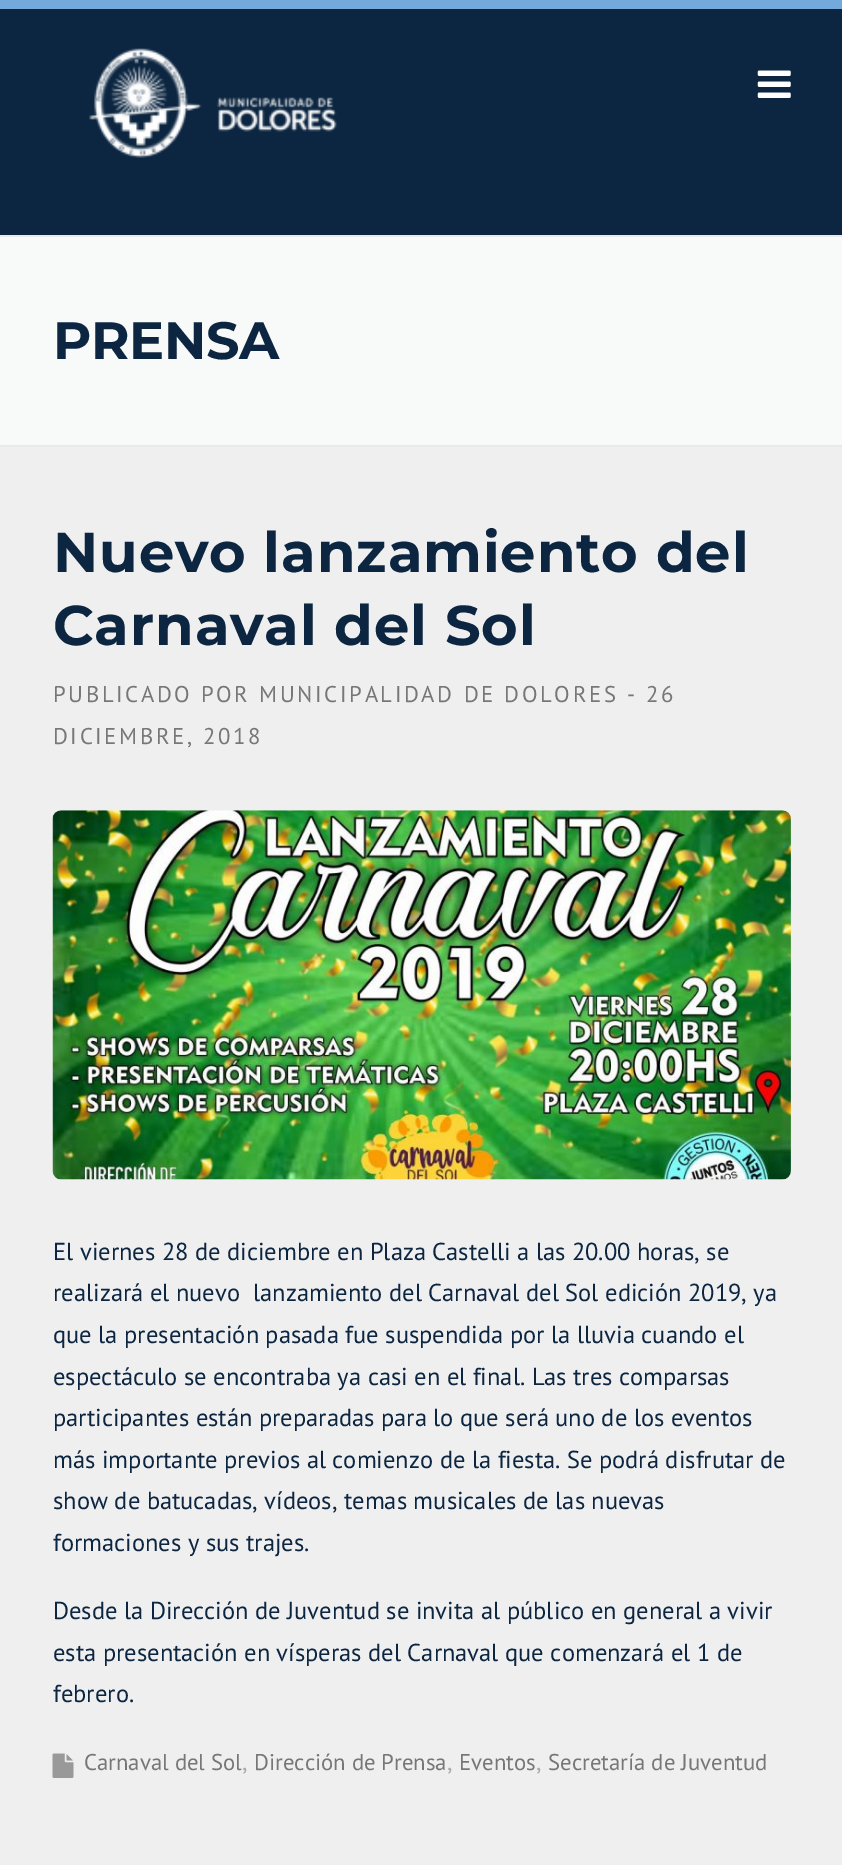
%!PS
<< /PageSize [842 1865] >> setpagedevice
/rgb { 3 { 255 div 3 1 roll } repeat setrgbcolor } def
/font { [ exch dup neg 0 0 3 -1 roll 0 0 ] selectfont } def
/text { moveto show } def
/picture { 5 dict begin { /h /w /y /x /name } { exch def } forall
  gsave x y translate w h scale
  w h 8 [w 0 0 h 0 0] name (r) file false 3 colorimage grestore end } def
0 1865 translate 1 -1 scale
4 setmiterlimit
239 239 239 rgb
0 0 842 1865 rectfill
12 38 65 rgb
0 9 842 226 rectfill
115 169 219 rgb
0 0 842 9 rectfill
(img_01.rgb) 89 48 248 110 picture
(img_02.rgb) 757 70 34 28 picture
248 249 249 rgb
0 237 842 208 rectfill
233 233 233 rgb
0 235 842 2 rectfill
0 445 842 2 rectfill
(img_03.rgb) 52 810 739 370 picture
(img_04.rgb) 52 1753 22 25 picture
/Montserrat-Bold 52.5 font
12 38 65 rgb
53 359 moveto -0.5 0 (PRENSA) ashow
/Montserrat-Bold 56 font
53 572 moveto 0.9 0 (Nuevo lanzamiento del) ashow
53 645 moveto 0.9 0 (Carnaval del Sol) ashow
/PTSans-Regular 22.75 font
119 119 119 rgb
53 702 moveto 2.6 0 (PUBLICADO POR MUNICIPALIDAD DE DOLORES - 26) ashow
53 744 moveto 2.6 0 (DICIEMBRE, 2018) ashow
/PTSans-Regular 24.5 font
12 38 65 rgb
(El viernes 28 de diciembre en Plaza Castelli a las 20.00 horas, se) 53 1260 text
(realizará el nuevo  lanzamiento del Carnaval del Sol edición 2019, ya) 53 1301 text
(que la presentación pasada fue suspendida por la lluvia cuando el) 53 1343 text
(espectáculo se encontraba ya casi en el final. Las tres comparsas) 53 1385 text
(participantes están preparadas para lo que será uno de los eventos) 53 1426 text
(más importante previos al comienzo de la fiesta. Se podrá disfrutar de) 53 1468 text
(show de batucadas, vídeos, temas musicales de las nuevas) 53 1509 text
(formaciones y sus trajes.) 53 1551 text
(Desde la Dirección de Juventud se invita al público en general a vivir) 53 1619 text
(esta presentación en vísperas del Carnaval que comenzará el 1 de) 53 1661 text
(febrero.) 53 1702 text
/PTSans-Regular 22.75 font
119 119 119 rgb
(Carnaval del Sol) 84 1770 text
/PTSans-Regular 24.5 font
170 170 170 rgb
(,) 242 1770 text
/PTSans-Regular 22.75 font
119 119 119 rgb
(Dirección de Prensa) 254 1770 text
/PTSans-Regular 24.5 font
170 170 170 rgb
(,) 447 1770 text
/PTSans-Regular 22.75 font
119 119 119 rgb
(Eventos) 459 1770 text
/PTSans-Regular 24.5 font
170 170 170 rgb
(,) 536 1770 text
/PTSans-Regular 22.75 font
119 119 119 rgb
(Secretaría de Juventud) 548 1770 text
showpage
